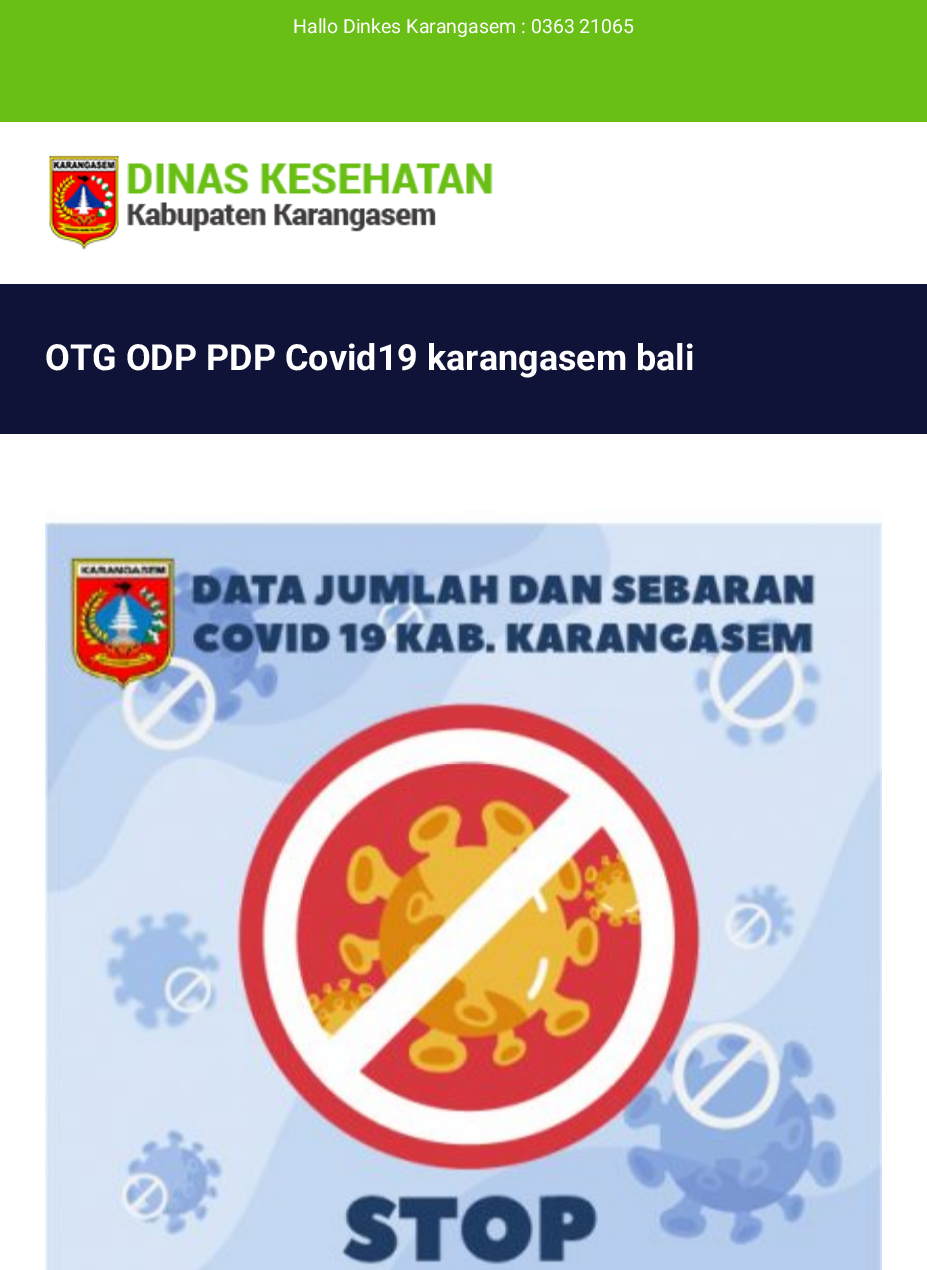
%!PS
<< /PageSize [927 1270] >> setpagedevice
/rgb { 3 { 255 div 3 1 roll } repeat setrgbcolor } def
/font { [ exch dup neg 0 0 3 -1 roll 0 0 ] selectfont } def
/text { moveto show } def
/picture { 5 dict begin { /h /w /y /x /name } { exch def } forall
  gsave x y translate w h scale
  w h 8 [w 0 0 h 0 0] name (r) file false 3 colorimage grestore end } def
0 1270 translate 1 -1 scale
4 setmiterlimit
255 255 255 rgb
0 0 927 1270 rectfill
106 191 22 rgb
0 0 927 122 rectfill
(img_01.rgb) 49 155 444 95 picture
15 19 56 rgb
0 284 927 150 rectfill
(img_02.rgb) 45 509 837 761 picture
/Roboto-Regular 19.5 font
255 255 255 rgb
(Hallo Dinkes Karangasem : 0363 21065) 293 33 text
/Roboto-Bold 36 font
(OTG ODP PDP Covid19 karangasem bali) 45 370 text
showpage
